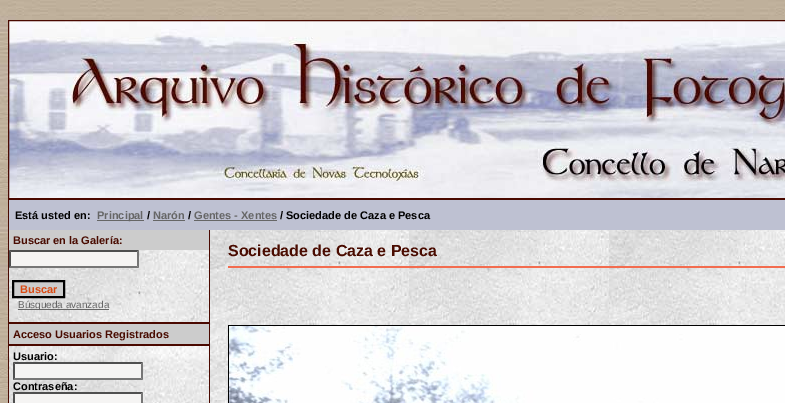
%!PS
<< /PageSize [785 403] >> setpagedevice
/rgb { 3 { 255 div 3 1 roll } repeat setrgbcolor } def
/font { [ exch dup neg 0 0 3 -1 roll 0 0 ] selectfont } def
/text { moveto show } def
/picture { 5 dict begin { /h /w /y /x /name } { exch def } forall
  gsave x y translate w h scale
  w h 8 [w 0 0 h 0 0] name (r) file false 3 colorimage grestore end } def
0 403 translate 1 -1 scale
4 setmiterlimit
255 255 255 rgb
0 0 785 403 rectfill
(img_01.rgb) 0 0 785 403 picture
(img_02.rgb) 9 21 776 177 picture
74 9 0 rgb
8.5 20.5 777 178 rectstroke
(img_03.rgb) 210 230 575 173 picture
8.5 199.5 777 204 rectstroke
190 193 210 rgb
9 200 776 30 rectfill
102 102 102 rgb
97 220 47 1 rectfill
153 220 32 1 rectfill
194 220 83 1 rectfill
(img_04.rgb) 9 250 200 72 picture
204 204 204 rgb
9 230 200 20 rectfill
245 244 243 rgb
9 250 130 18 rectfill
79 79 79 rgb
9 250 moveto 130 0 rlineto -2 2 rlineto -126 0 rlineto closepath fill
118 118 118 rgb
139 250 moveto 0 18 rlineto -2 -2 rlineto 0 -14 rlineto closepath fill
139 268 moveto -130 0 rlineto 2 -2 rlineto 126 0 rlineto closepath fill
79 79 79 rgb
9 268 moveto 0 -18 rlineto 2 2 rlineto 0 14 rlineto closepath fill
204 204 204 rgb
13 281 moveto 51 0 rlineto 0 16 rlineto -51 0 rlineto closepath gsave fill grestore
0 0 0 rgb
2 setlinewidth
stroke
102 102 102 rgb
18 309 91 1 rectfill
74 9 0 rgb
9 322 200 2 rectfill
204 204 204 rgb
9 324 200 20 rectfill
74 9 0 rgb
9 344 200 2 rectfill
(img_05.rgb) 9 346 200 57 picture
245 244 243 rgb
13 362 130 18 rectfill
79 79 79 rgb
13 362 moveto 130 0 rlineto -2 2 rlineto -126 0 rlineto closepath fill
118 118 118 rgb
143 362 moveto 0 18 rlineto -2 -2 rlineto 0 -14 rlineto closepath fill
143 380 moveto -130 0 rlineto 2 -2 rlineto 126 0 rlineto closepath fill
79 79 79 rgb
13 380 moveto 0 -18 rlineto 2 2 rlineto 0 14 rlineto closepath fill
245 244 243 rgb
13 392 130 11 rectfill
79 79 79 rgb
13 392 moveto 130 0 rlineto -2 2 rlineto -126 0 rlineto closepath fill
118 118 118 rgb
143 392 moveto 0 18 rlineto -2 -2 rlineto 0 -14 rlineto closepath fill
79 79 79 rgb
13 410 moveto 0 -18 rlineto 2 2 rlineto 0 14 rlineto closepath fill
74 9 0 rgb
209 230 1 173 rectfill
243 108 79 rgb
229 267 556 1 rectfill
228 266 557 1 rectfill
228 266 1 2 rectfill
0 0 0 rgb
1 setlinewidth
228.5 325.5 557 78 rectstroke
(img_06.rgb) 229 326 556 77 picture
/LiberationSans-Bold 11 font
(Está usted en:) 15 219 text
102 102 102 rgb
(Principal) 97 219 text
0 0 0 rgb
(/) 147 219 text
102 102 102 rgb
(Narón) 153 219 text
0 0 0 rgb
(/) 188 219 text
102 102 102 rgb
(Gentes - Xentes) 194 219 text
0 0 0 rgb
(/ Sociedade de Caza e Pesca) 280 219 text
73 11 0 rgb
(Buscar en la Galería:) 13 244 text
218 74 18 rgb
(Buscar) 20 293 text
/LiberationSans-Regular 10 font
102 102 102 rgb
(Búsqueda avanzada) 18 308 text
/LiberationSans-Bold 11 font
73 11 0 rgb
(Acceso Usuarios Registrados) 13 338 text
0 0 0 rgb
(Usuario:) 13 360 text
(Contraseña:) 13 390 text
/LiberationSans-Bold 16 font
73 11 0 rgb
(Sociedade de Caza e Pesca) 228 256 text
showpage
